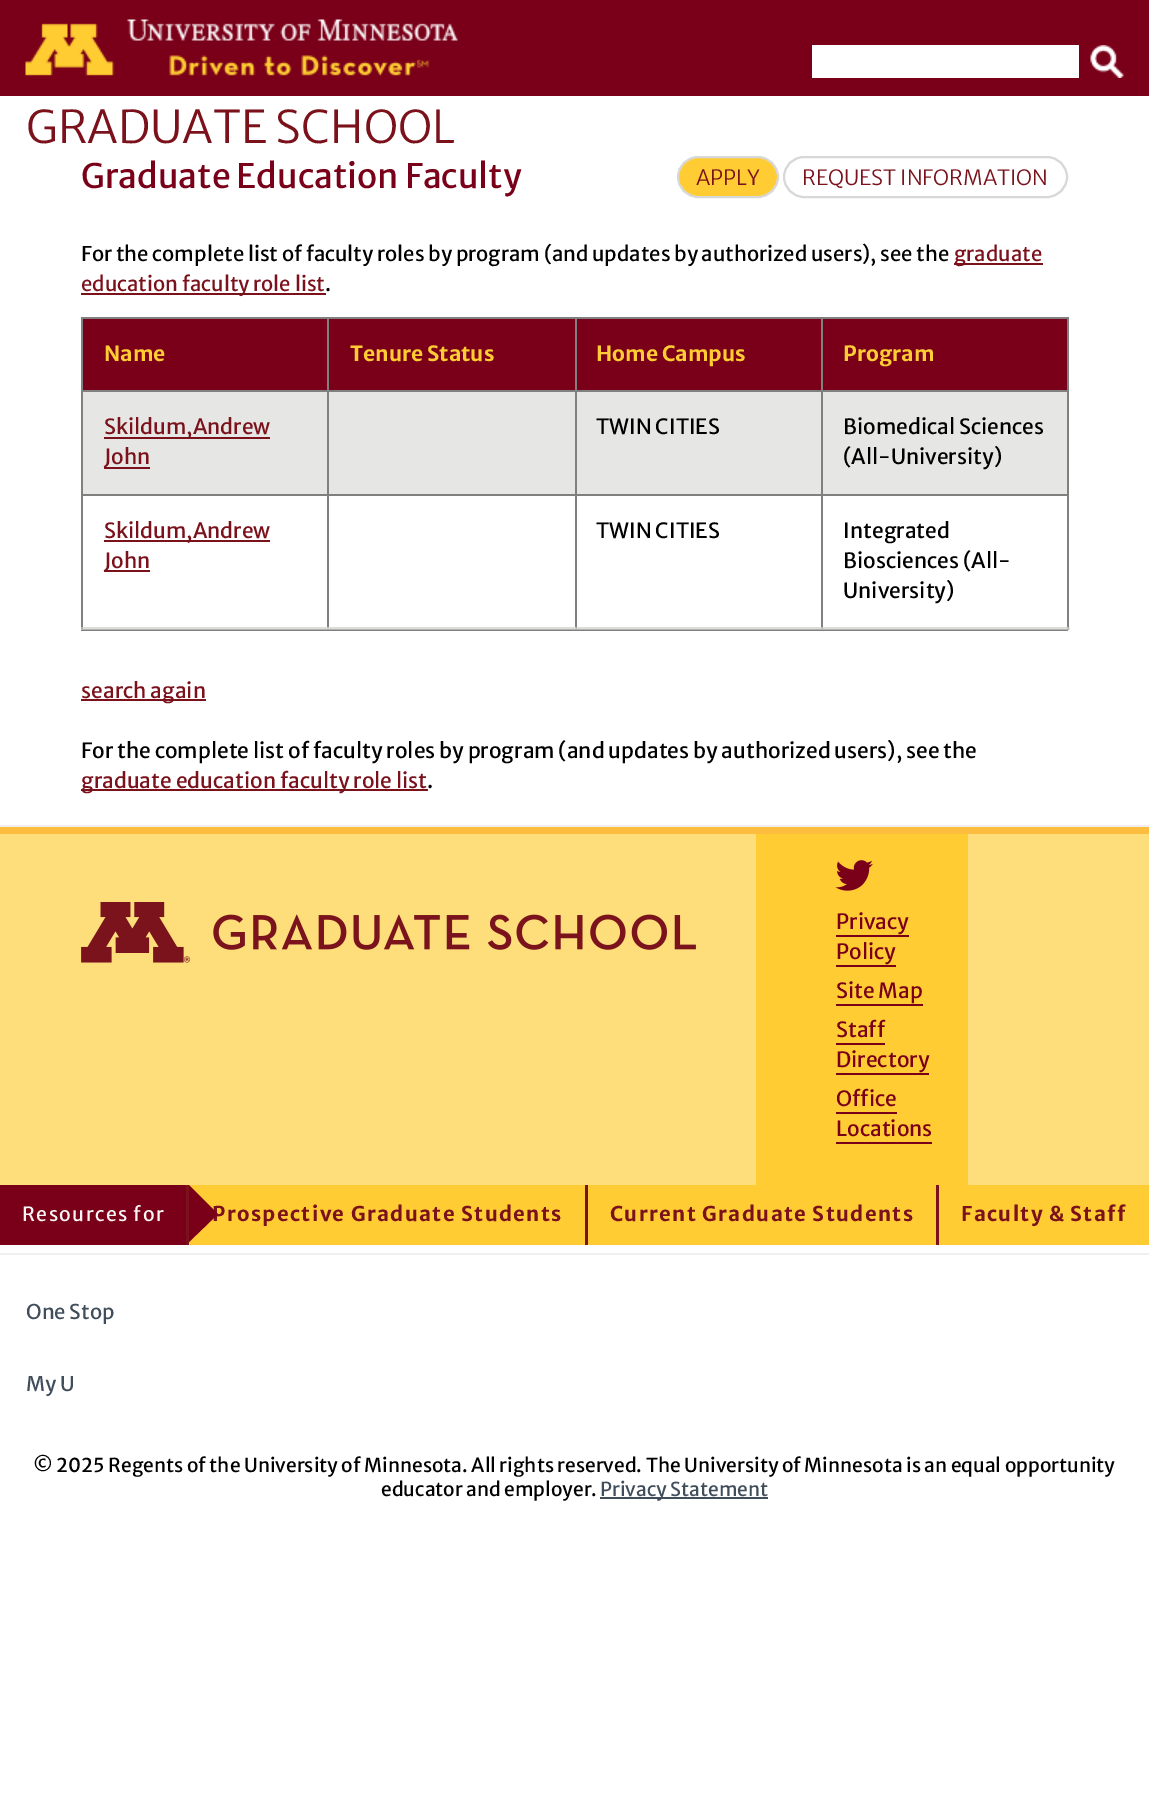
%!PS
<< /PageSize [1149 1794] >> setpagedevice
/rgb { 3 { 255 div 3 1 roll } repeat setrgbcolor } def
/font { [ exch dup neg 0 0 3 -1 roll 0 0 ] selectfont } def
/text { moveto show } def
/roundrect { 5 dict begin { /r /h /w /y /x } { exch def } forall
  x r add y moveto x w add y 2 copy h add r arct x w add y h add x 1 index r arct
  x y h add x y r arct x y 2 copy exch w add exch r arct closepath end } def
/picture { 5 dict begin { /h /w /y /x /name } { exch def } forall
  gsave x y translate w h scale
  w h 8 [w 0 0 h 0 0] name (r) file false 3 colorimage grestore end } def
0 1794 translate 1 -1 scale
4 setmiterlimit
255 255 255 rgb
0 0 1149 1794 rectfill
230 230 228 rgb
1069 627 1 3 rectfill
220 220 217 rgb
81 627 987 2 rectfill
122 0 25 rgb
0 0 1149 96 rectfill
(img_01.rgb) 25 19 433 57 picture
255 255 255 rgb
812 45 267 33 rectfill
(img_02.rgb) 1090 45 34 33 picture
255 204 51 rgb
678 157 100 40 20 roundrect gsave fill grestore
216 216 216 rgb
2 setlinewidth
stroke
784 157 283 40 20 roundrect stroke
122 17 27 rgb
954 263 89 2 rectfill
81 293 245 2 rectfill
128 128 128 rgb
81 317 987 2 rectfill
1067 317 2 313 rectfill
179 180 177 rgb
1068 627 1 3 rectfill
199 200 197 rgb
1067 627 1 2 rectfill
128 128 128 rgb
81 630 987 1 rectfill
179 180 177 rgb
81 629 987 1 rectfill
128 128 128 rgb
81 317 2 177 rectfill
179 180 177 rgb
81 627 2 3 rectfill
122 0 25 rgb
83 319 984 71 rectfill
128 128 128 rgb
821 390 247 2 rectfill
230 231 228 rgb
83 392 984 102 rectfill
128 128 128 rgb
821 494 247 2 rectfill
821 494 2 135 rectfill
575 494 247 2 rectfill
821 390 2 105 rectfill
575 390 247 2 rectfill
575 494 2 135 rectfill
327 494 249 2 rectfill
575 390 2 105 rectfill
327 390 249 2 rectfill
327 494 2 135 rectfill
81 494 248 2 rectfill
327 390 2 105 rectfill
81 390 248 2 rectfill
327 317 2 75 rectfill
575 317 2 75 rectfill
821 317 2 75 rectfill
122 17 27 rgb
104 437 166 2 rectfill
104 467 46 2 rectfill
128 128 128 rgb
81 494 2 135 rectfill
179 180 177 rgb
81 627 2 2 rectfill
122 17 27 rgb
104 540 166 2 rectfill
104 570 46 2 rectfill
199 200 197 rgb
327 627 2 2 rectfill
179 180 177 rgb
575 627 2 2 rectfill
199 200 197 rgb
575 627 1 2 rectfill
179 180 177 rgb
821 627 2 2 rectfill
199 200 197 rgb
821 627 1 2 rectfill
122 17 27 rgb
81 699 125 2 rectfill
81 789 347 2 rectfill
240 239 238 rgb
0 825 1149 2 rectfill
254 221 123 rgb
0 834 1149 351 rectfill
253 189 63 rgb
0 827 1149 7 rectfill
(img_03.rgb) 81 902 615 61 picture
255 204 51 rgb
756 834 212 351 rectfill
(img_04.rgb) 835 860 38 31 picture
122 0 25 rgb
836 935 73 2 rectfill
836 965 60 2 rectfill
836 1004 87 2 rectfill
836 1043 49 2 rectfill
836 1073 93 2 rectfill
836 1112 61 2 rectfill
836 1142 96 2 rectfill
0 1185 186 60 rectfill
122 17 27 rgb
186 1185 3 60 rectfill
255 204 51 rgb
189 1185 396 60 rectfill
122 17 27 rgb
585 1185 3 60 rectfill
255 204 51 rgb
588 1185 348 60 rectfill
122 17 27 rgb
936 1185 3 60 rectfill
255 204 51 rgb
939 1185 210 60 rectfill
240 240 240 rgb
0 1253 1149 2 rectfill
64 77 91 rgb
600 1497 168 2 rectfill
/MerriweatherSans-Light 45 font
122 17 27 rgb
(GRADUATE SCHOOL) 26 143 text
/MerriweatherSans-Light 21 font
(APPLY) 696 185 text
(REQUEST INFORMATION) 802 185 text
/MerriweatherSans-Regular 33.75 font
122 0 25 rgb
(Graduate Education Faculty) 81 188 text
/MerriweatherSans-Regular 20.35 font
0 0 0 rgb
(For the complete list of faculty roles by program \(and updates by authorized users\), see the) 81 261 text
122 17 27 rgb
(graduate) 954 261 text
(education faculty role list) 81 291 text
0 0 0 rgb
(.) 325 291 text
/MerriweatherSans-Bold 21 font
255 204 51 rgb
(Name) 104 361 text
(Tenure Status) 350 361 text
(Home Campus) 596 361 text
(Program) 843 361 text
/MerriweatherSans-Regular 21 font
122 17 27 rgb
(Skildum,Andrew) 104 434 text
(John) 104 464 text
0 0 0 rgb
(TWIN CITIES) 596 434 text
(Biomedical Sciences) 843 434 text
(\(All-University\)) 843 464 text
122 17 27 rgb
(Skildum,Andrew) 104 538 text
(John) 104 568 text
0 0 0 rgb
(TWIN CITIES) 596 538 text
(Integrated) 843 538 text
(Biosciences \(All-) 843 568 text
(University\)) 843 598 text
122 17 27 rgb
(search again) 81 698 text
0 0 0 rgb
(For the complete list of faculty roles by program \(and updates by authorized users\), see the) 81 758 text
122 17 27 rgb
(graduate education faculty role list) 81 788 text
0 0 0 rgb
(.) 427 788 text
122 0 25 rgb
(Privacy) 836 929 text
(Policy) 836 959 text
(Site Map) 836 998 text
(Staff) 836 1037 text
(Directory) 836 1067 text
(Office) 836 1106 text
(Locations) 836 1136 text
/MerriweatherSans-Regular 19.5 font
249 247 246 rgb
22 1221 moveto 1.35 0 (Resources for) ashow
/MerriweatherSans-Bold 20.35 font
122 17 27 rgb
212 1221 moveto 1.35 0 (Prospective Graduate Students) ashow
122 0 25 rgb
189 1242 moveto 0 -57 rlineto 29 29 rlineto closepath fill
122 17 27 rgb
610 1221 moveto 1.35 0 (Current Graduate Students) ashow
961 1221 moveto 1.35 0 (Faculty & Staff) ashow
/MerriweatherSans-Regular 20.35 font
64 77 91 rgb
(One Stop) 26 1319 text
(My U) 26 1391 text
/MerriweatherSans-Regular 19.2 font
0 0 0 rgb
(© 2025 Regents of the University of Minnesota. All rights reserved. The University of Minnesota is an equal opportunity) 33 1472 text
(educator and employer.) 381 1496 text
64 77 91 rgb
(Privacy Statement) 600 1496 text
showpage
